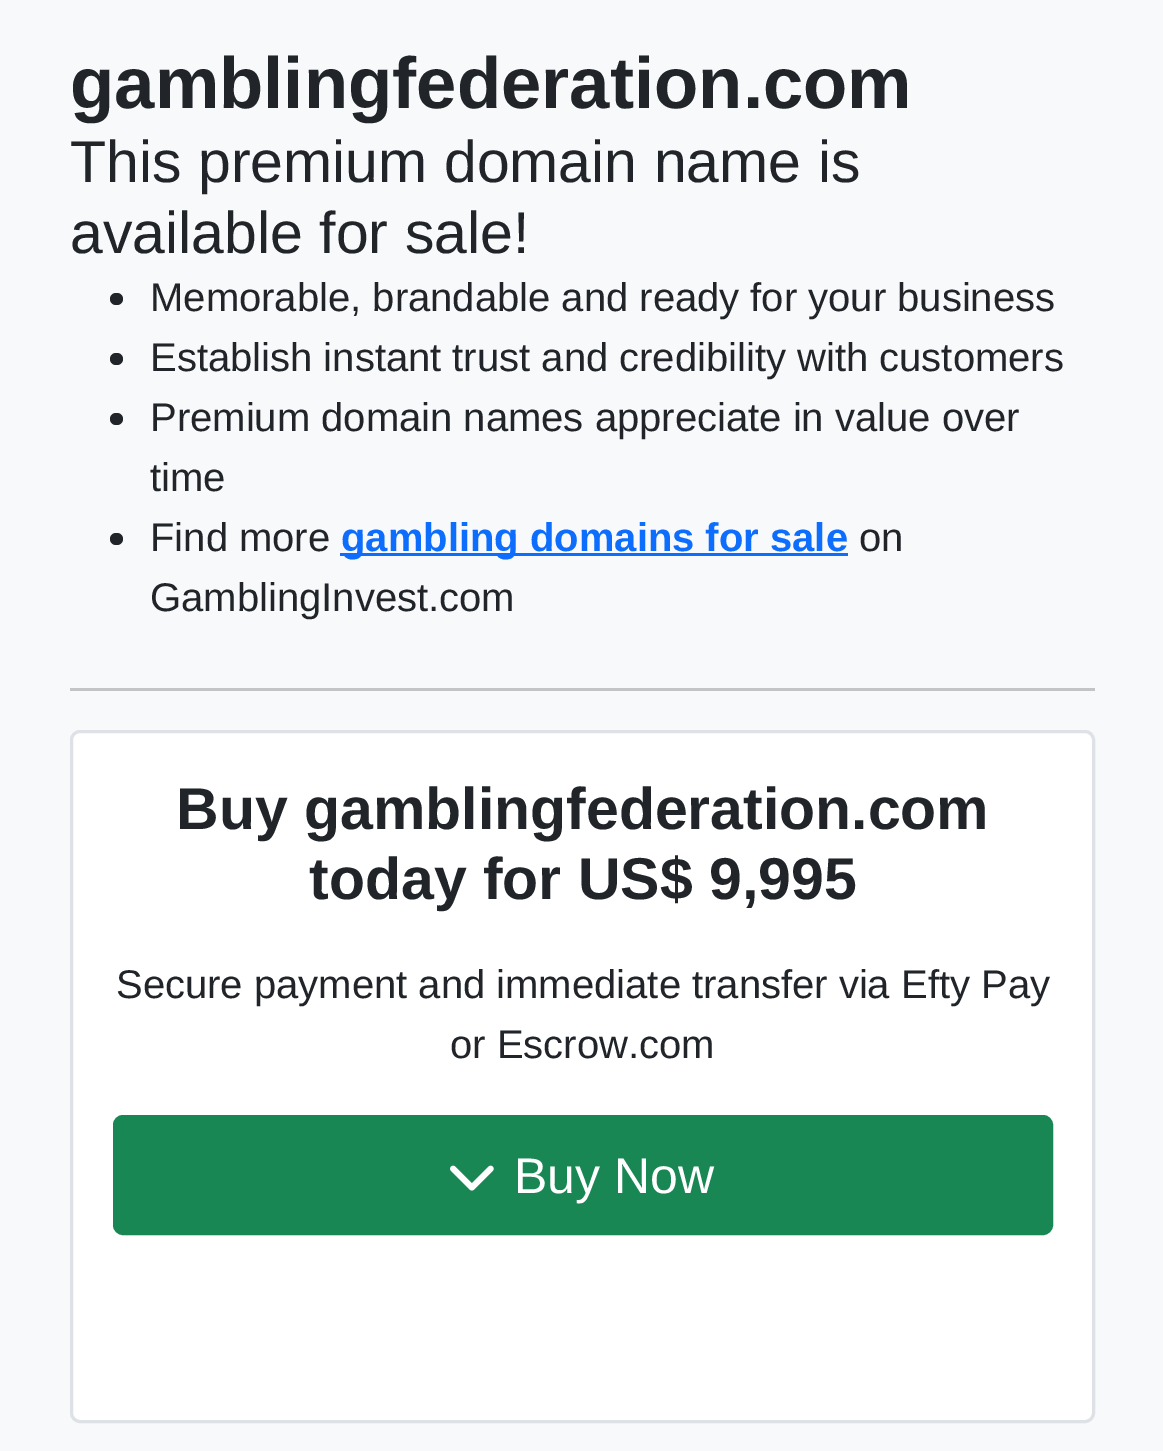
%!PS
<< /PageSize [1163 1451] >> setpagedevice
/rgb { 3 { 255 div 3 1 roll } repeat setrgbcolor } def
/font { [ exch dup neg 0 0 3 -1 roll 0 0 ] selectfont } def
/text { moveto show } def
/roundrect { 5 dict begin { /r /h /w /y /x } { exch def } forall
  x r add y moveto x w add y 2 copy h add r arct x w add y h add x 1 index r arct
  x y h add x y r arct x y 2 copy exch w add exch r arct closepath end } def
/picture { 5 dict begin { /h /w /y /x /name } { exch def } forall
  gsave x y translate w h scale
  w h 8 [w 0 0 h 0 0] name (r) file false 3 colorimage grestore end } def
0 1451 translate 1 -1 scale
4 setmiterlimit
248 249 250 rgb
0 0 1163 1451 rectfill
33 37 41 rgb
110 293 13 12 6 roundrect fill
110 353 13 12 6 roundrect fill
110 413 13 12 6 roundrect fill
110 533 13 12 6 roundrect fill
13 110 253 rgb
340 553 508 3 rectfill
194 196 198 rgb
70 688 1025 3 rectfill
255 255 255 rgb
71.5 731.5 1022 690 8.5 roundrect gsave fill grestore
222 226 230 rgb
3 setlinewidth
stroke
25 135 84 rgb
114.5 1116.5 937 117 8.5 roundrect gsave fill grestore
stroke
(img_01.rgb) 450 1165 44 26 picture
/LiberationSans-Bold 72.5 font
33 37 41 rgb
(gamblingfederation.com) 70 108 text
/LiberationSans-Regular 59 font
(This premium domain name is) 70 182 text
(available for sale!) 70 253 text
/LiberationSans-Regular 40 font
(Memorable, brandable and ready for your business) 150 311 text
(Establish instant trust and credibility with customers) 150 371 text
(Premium domain names appreciate in value over) 150 431 text
(time) 150 491 text
(Find more) 150 551 text
/LiberationSans-Bold 40 font
13 110 253 rgb
(gambling domains for sale) 341 551 text
/LiberationSans-Regular 40 font
33 37 41 rgb
(on) 859 551 text
(GamblingInvest.com) 150 611 text
/LiberationSans-Bold 59 font
(Buy gamblingfederation.com) 176 829 text
(today for US$ 9,995) 309 899 text
/LiberationSans-Regular 40 font
(Secure payment and immediate transfer via Efty Pay) 116 998 text
(or Escrow.com) 450 1058 text
/LiberationSans-Regular 50 font
255 255 255 rgb
(Buy Now) 514 1193 text
showpage
